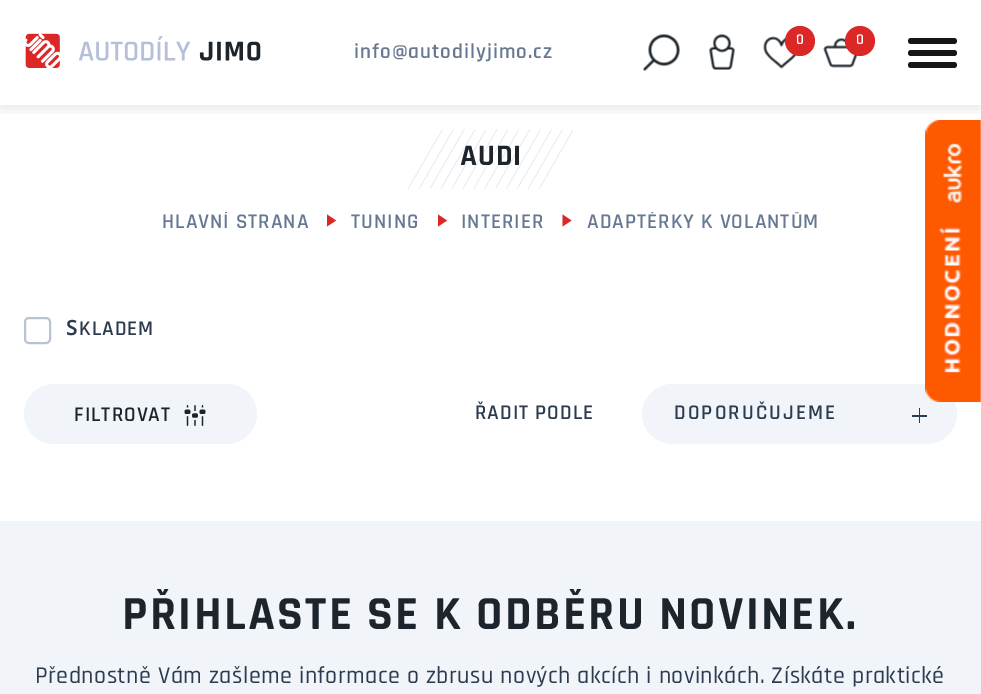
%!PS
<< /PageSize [981 694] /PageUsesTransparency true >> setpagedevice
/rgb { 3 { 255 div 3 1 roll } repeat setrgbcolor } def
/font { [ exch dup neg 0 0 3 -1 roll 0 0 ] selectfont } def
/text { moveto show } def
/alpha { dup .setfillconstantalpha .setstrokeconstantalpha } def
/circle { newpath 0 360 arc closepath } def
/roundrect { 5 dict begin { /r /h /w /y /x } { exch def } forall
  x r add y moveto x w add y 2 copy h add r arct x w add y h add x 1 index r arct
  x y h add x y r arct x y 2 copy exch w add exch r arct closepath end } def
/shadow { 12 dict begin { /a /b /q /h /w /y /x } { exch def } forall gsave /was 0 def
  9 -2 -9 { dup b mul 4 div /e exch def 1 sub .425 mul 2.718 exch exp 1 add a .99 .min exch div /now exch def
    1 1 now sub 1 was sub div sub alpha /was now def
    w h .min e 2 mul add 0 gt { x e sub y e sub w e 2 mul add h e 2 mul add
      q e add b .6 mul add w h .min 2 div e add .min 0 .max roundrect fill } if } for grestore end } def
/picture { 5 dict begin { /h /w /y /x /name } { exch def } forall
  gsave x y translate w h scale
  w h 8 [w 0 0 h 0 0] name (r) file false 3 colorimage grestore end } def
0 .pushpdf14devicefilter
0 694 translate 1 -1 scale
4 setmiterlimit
255 255 255 rgb
0 0 981 694 rectfill
(img_06.rgb) 408 129 165 60 picture
gsave
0 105 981 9 rectclip
0 0 0 rgb
0 3 981 105 0 7.5 0.1 shadow
grestore
(img_01.rgb) 25 33 236 35 picture
(img_02.rgb) 643 34 37 37 picture
(img_03.rgb) 709 34 26 36 picture
(img_04.rgb) 763 36 34 33 picture
220 39 39 rgb
800 41 15 circle fill
(img_05.rgb) 823 38 35 30 picture
860 41 15 circle fill
22 22 22 rgb
908 38 49 6 3 roundrect fill
908 50 49 6 3 roundrect fill
908 62 49 6 3 roundrect fill
220 39 39 rgb
327 226.5 moveto 0 -12 rlineto 9 6 rlineto closepath fill
438 226.5 moveto 0 -12 rlineto 9 6 rlineto closepath fill
562.5 226.5 moveto 0 -12 rlineto 9 6 rlineto closepath fill
184 196 213 rgb
2 setlinewidth
25 318 25 25 4 roundrect stroke
241 245 250 rgb
24 384 233 60 30 roundrect fill
(img_07.rgb) 184 405 22 21 picture
643 385 313 58 29 roundrect gsave fill grestore
stroke
44 59 78 rgb
919 408 1 15 rectfill
912 415 15 2 rectfill
(img_08.rgb) 925 120 56 282 picture
241 245 250 rgb
0 521 981 173 rectfill
/Rajdhani-SemiBold 15 font
255 255 255 rgb
(0) 796 44 text
(0) 856 44 text
/Rajdhani-SemiBold 21 font
102 120 146 rgb
354 58 moveto 1.05 0 (info@autodilyjimo.cz) ashow
/Rajdhani-Bold 30 font
29 36 44 rgb
460 165 moveto 1 0 (AUDI) ashow
gsave
24 212 933 34 rectclip
/Rajdhani-SemiBold 21 font
102 120 146 rgb
162 228 moveto 1.05 0 (HLAVNÍ STRANA) ashow
grestore
/Rajdhani-SemiBold 21 font
102 120 146 rgb
351 228 moveto 1.05 0 (TUNING) ashow
461 228 moveto 1.05 0 (INTERIER) ashow
gsave
24 212 933 34 rectclip
587 228 moveto 1.05 0 (ADAPTÉRKY K VOLANTŮM) ashow
grestore
/NotoSans-SemiBold 21 font
44 59 78 rgb
66 335 moveto 1.05 0 (S) ashow
/Rajdhani-SemiBold 21 font
79 335 moveto 1.05 0 (KLADEM) ashow
29 36 44 rgb
74 421 moveto 1.05 0 (FILTROVAT) ashow
44 59 78 rgb
475 419 moveto 1.05 0 (ŘADIT PODLE) ashow
674 419 moveto 2.1 0 (DOPORUČUJEME) ashow
/Rajdhani-Bold 48 font
29 36 44 rgb
122 629 moveto 2.4 0 (PŘIHLASTE SE K ODBĚRU NOVINEK.) ashow
/Rajdhani-Medium 24 font
44 59 78 rgb
35 683 moveto 0.48 0 (Přednostně Vám zašleme informace o zbrusu nových akcích i novinkách. Získáte praktické) ashow
.poppdf14devicefilter showpage
